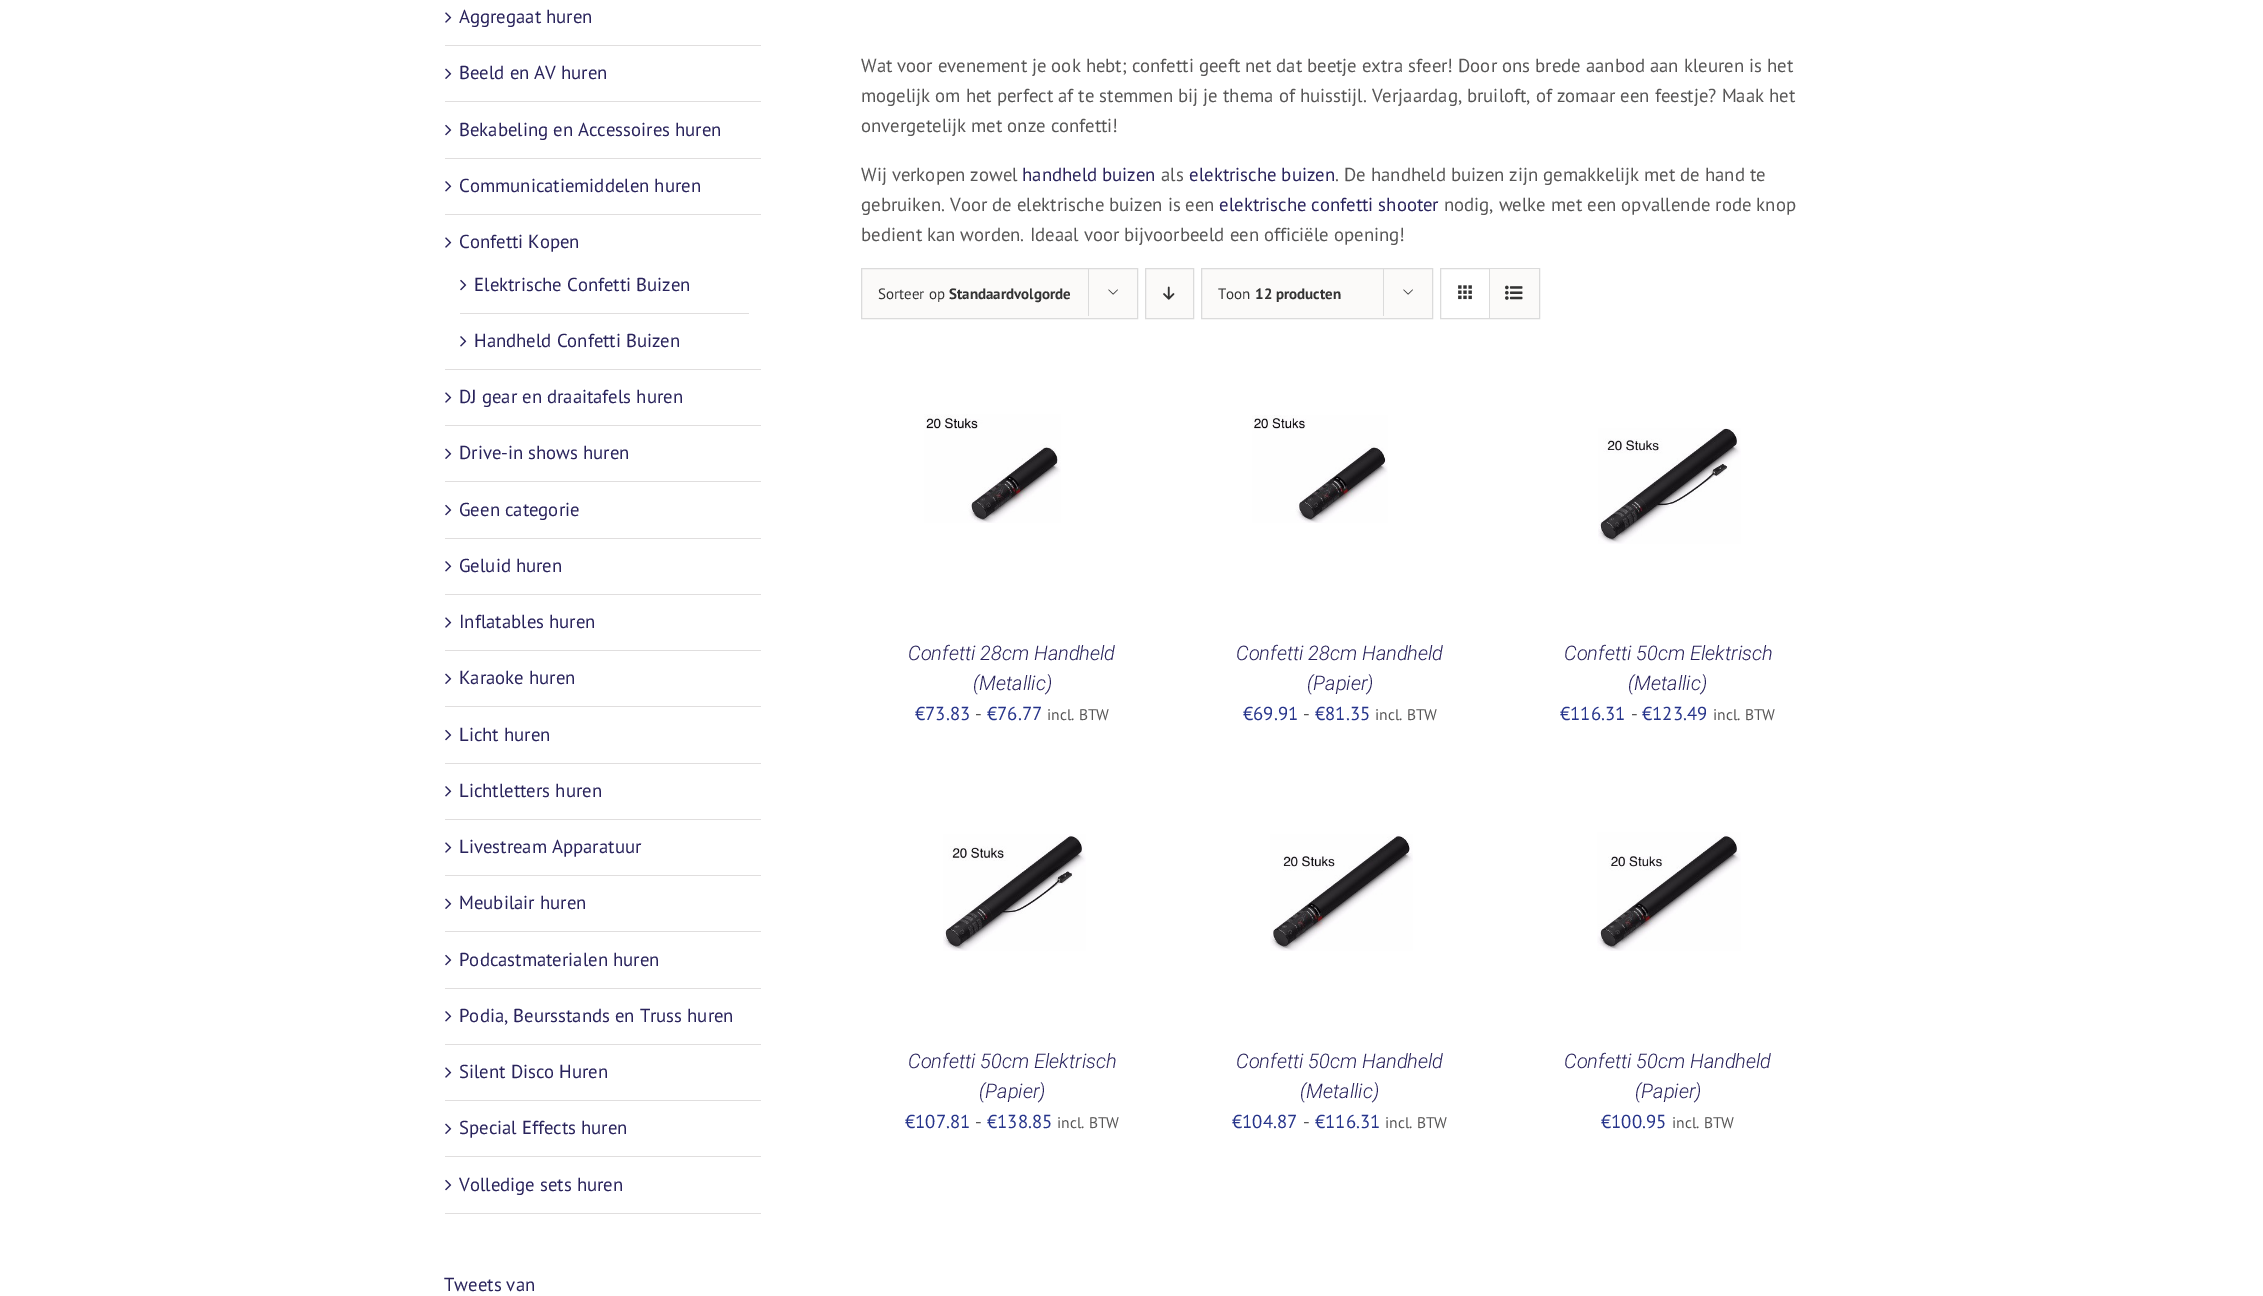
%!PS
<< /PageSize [2263 1296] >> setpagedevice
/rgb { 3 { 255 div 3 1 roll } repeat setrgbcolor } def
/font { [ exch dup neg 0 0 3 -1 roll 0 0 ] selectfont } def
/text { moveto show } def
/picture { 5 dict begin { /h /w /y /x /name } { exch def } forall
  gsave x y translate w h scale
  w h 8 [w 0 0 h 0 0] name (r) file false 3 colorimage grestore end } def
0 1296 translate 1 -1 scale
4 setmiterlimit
255 255 255 rgb
0 0 2263 1296 rectfill
224 222 222 rgb
445 45 316 1 rectfill
(img_01.rgb) 445 12 7 11 picture
445 101 316 1 rectfill
(img_02.rgb) 445 68 7 11 picture
445 158 316 1 rectfill
(img_03.rgb) 445 124 7 12 picture
445 214 316 1 rectfill
(img_04.rgb) 445 181 7 11 picture
445 369 316 1 rectfill
(img_01.rgb) 445 237 7 11 picture
460 313 289 1 rectfill
(img_03.rgb) 460 279 7 12 picture
(img_04.rgb) 460 336 7 11 picture
445 425 316 1 rectfill
(img_01.rgb) 445 392 7 11 picture
445 481 316 1 rectfill
(img_02.rgb) 445 448 7 11 picture
445 538 316 1 rectfill
(img_03.rgb) 445 504 7 12 picture
445 594 316 1 rectfill
(img_04.rgb) 445 561 7 11 picture
445 650 316 1 rectfill
(img_01.rgb) 445 617 7 11 picture
445 706 316 1 rectfill
(img_02.rgb) 445 673 7 11 picture
445 763 316 1 rectfill
(img_03.rgb) 445 729 7 12 picture
445 819 316 1 rectfill
(img_04.rgb) 445 786 7 11 picture
445 875 316 1 rectfill
(img_01.rgb) 445 842 7 11 picture
445 931 316 1 rectfill
(img_02.rgb) 445 898 7 11 picture
445 988 316 1 rectfill
(img_03.rgb) 445 954 7 12 picture
445 1044 316 1 rectfill
(img_04.rgb) 445 1011 7 11 picture
445 1100 316 1 rectfill
(img_01.rgb) 445 1067 7 11 picture
445 1156 316 1 rectfill
(img_02.rgb) 445 1123 7 11 picture
445 1213 316 1 rectfill
(img_03.rgb) 445 1179 7 12 picture
251 250 249 rgb
861.5 268.5 moveto 276 0 rlineto 0 50 rlineto -276 0 rlineto closepath gsave fill grestore
219 219 219 rgb
stroke
1088 268 1 48 rectfill
(img_05.rgb) 1108 289 10 6 picture
251 250 249 rgb
1145.5 268.5 moveto 48 0 rlineto 0 50 rlineto -48 0 rlineto closepath gsave fill grestore
219 219 219 rgb
stroke
(img_06.rgb) 1163 286 12 14 picture
251 250 249 rgb
1201.5 268.5 moveto 231 0 rlineto 0 50 rlineto -231 0 rlineto closepath gsave fill grestore
219 219 219 rgb
stroke
1383 268 1 48 rectfill
(img_05.rgb) 1403 289 10 6 picture
1440.5 268.5 99 50 rectstroke
1489 269 1 49 rectfill
(img_07.rgb) 1458 285 14 15 picture
251 250 249 rgb
1490 269 49 49 rectfill
(img_08.rgb) 1505 285 18 15 picture
(img_09.rgb) 924 414 137 109 picture
(img_10.rgb) 1252 415 136 108 picture
(img_11.rgb) 1598 428 143 116 picture
(img_12.rgb) 943 834 143 117 picture
(img_13.rgb) 1270 834 143 117 picture
(img_14.rgb) 1597 832 144 119 picture
/PTSans-Regular 18.75 font
41 35 92 rgb
(Aggregaat huren) 459 23 text
(Beeld en AV huren) 459 79 text
(Bekabeling en Accessoires huren) 459 136 text
(Communicatiemiddelen huren) 459 192 text
(Confetti Kopen) 459 248 text
(Elektrische Confetti Buizen) 474 291 text
(Handheld Confetti Buizen) 474 347 text
(DJ gear en draaitafels huren) 459 403 text
(Drive-in shows huren) 459 459 text
(Geen categorie) 459 516 text
(Geluid huren) 459 572 text
(Inflatables huren) 459 628 text
(Karaoke huren) 459 684 text
(Licht huren) 459 741 text
(Lichtletters huren) 459 797 text
(Livestream Apparatuur) 459 853 text
(Meubilair huren) 459 909 text
(Podcastmaterialen huren) 459 966 text
(Podia, Beursstands en Truss huren) 459 1022 text
(Silent Disco Huren) 459 1078 text
(Special Effects huren) 459 1134 text
(Volledige sets huren) 459 1191 text
(Tweets van) 444 1291 text
87 86 86 rgb
(Wat voor evenement je ook hebt; confetti geeft net dat beetje extra sfeer! Door ons brede aanbod aan kleuren is het) 861 72 text
(mogelijk om het perfect af te stemmen bij je thema of huisstijl. Verjaardag, bruiloft, of zomaar een feestje? Maak het) 861 102 text
(onvergetelijk met onze confetti!) 861 132 text
(Wij verkopen zowel) 861 181 text
41 35 92 rgb
(handheld buizen) 1022 181 text
87 86 86 rgb
(als) 1161 181 text
41 35 92 rgb
(elektrische buizen) 1189 181 text
87 86 86 rgb
(. De handheld buizen zijn gemakkelijk met de hand te) 1335 181 text
(gebruiken. Voor de elektrische buizen is een) 861 211 text
41 35 92 rgb
(elektrische confetti shooter) 1219 211 text
87 86 86 rgb
(nodig, welke met een opvallende rode knop) 1444 211 text
(bedient kan worden. Ideaal voor bijvoorbeeld een officiële opening!) 861 241 text
/PTSans-Regular 15 font
51 51 51 rgb
(Sorteer op) 878 299 text
/PTSans-Bold 15 font
(Standaardvolgorde) 949 299 text
/PTSans-Regular 15 font
(Toon) 1218 299 text
/PTSans-Bold 15 font
(12 producten) 1255 299 text
/Roboto-LightItalic 20 font
41 35 92 rgb
(Confetti 28cm Handheld) 908 660 text
(\(Metallic\)) 973 690 text
/PTSans-Regular 18.75 font
38 52 139 rgb
(€73.83) 915 720 text
87 86 86 rgb
(-) 975 720 text
38 52 139 rgb
(€76.77) 987 720 text
/PTSans-Regular 15.5 font
87 86 86 rgb
(incl. BTW) 1047 720 text
/Roboto-LightItalic 20 font
41 35 92 rgb
(Confetti 28cm Handheld) 1236 660 text
(\(Papier\)) 1307 690 text
/PTSans-Regular 18.75 font
38 52 139 rgb
(€69.91) 1243 720 text
87 86 86 rgb
(-) 1303 720 text
38 52 139 rgb
(€81.35) 1315 720 text
/PTSans-Regular 15.5 font
87 86 86 rgb
(incl. BTW) 1375 720 text
/Roboto-LightItalic 20 font
41 35 92 rgb
(Confetti 50cm Elektrisch) 1564 660 text
(\(Metallic\)) 1628 690 text
/PTSans-Regular 18.75 font
38 52 139 rgb
(€116.31) 1560 720 text
87 86 86 rgb
(-) 1631 720 text
38 52 139 rgb
(€123.49) 1642 720 text
/PTSans-Regular 15.5 font
87 86 86 rgb
(incl. BTW) 1713 720 text
/Roboto-LightItalic 20 font
41 35 92 rgb
(Confetti 50cm Elektrisch) 908 1068 text
(\(Papier\)) 979 1098 text
/PTSans-Regular 18.75 font
38 52 139 rgb
(€107.81) 905 1128 text
87 86 86 rgb
(-) 975 1128 text
38 52 139 rgb
(€138.85) 987 1128 text
/PTSans-Regular 15.5 font
87 86 86 rgb
(incl. BTW) 1057 1128 text
/Roboto-LightItalic 20 font
41 35 92 rgb
(Confetti 50cm Handheld) 1236 1068 text
(\(Metallic\)) 1300 1098 text
/PTSans-Regular 18.75 font
38 52 139 rgb
(€104.87) 1232 1128 text
87 86 86 rgb
(-) 1303 1128 text
38 52 139 rgb
(€116.31) 1315 1128 text
/PTSans-Regular 15.5 font
87 86 86 rgb
(incl. BTW) 1385 1128 text
/Roboto-LightItalic 20 font
41 35 92 rgb
(Confetti 50cm Handheld) 1564 1068 text
(\(Papier\)) 1635 1098 text
/PTSans-Regular 18.75 font
38 52 139 rgb
(€100.95) 1601 1128 text
/PTSans-Regular 15.5 font
87 86 86 rgb
(incl. BTW) 1672 1128 text
showpage
